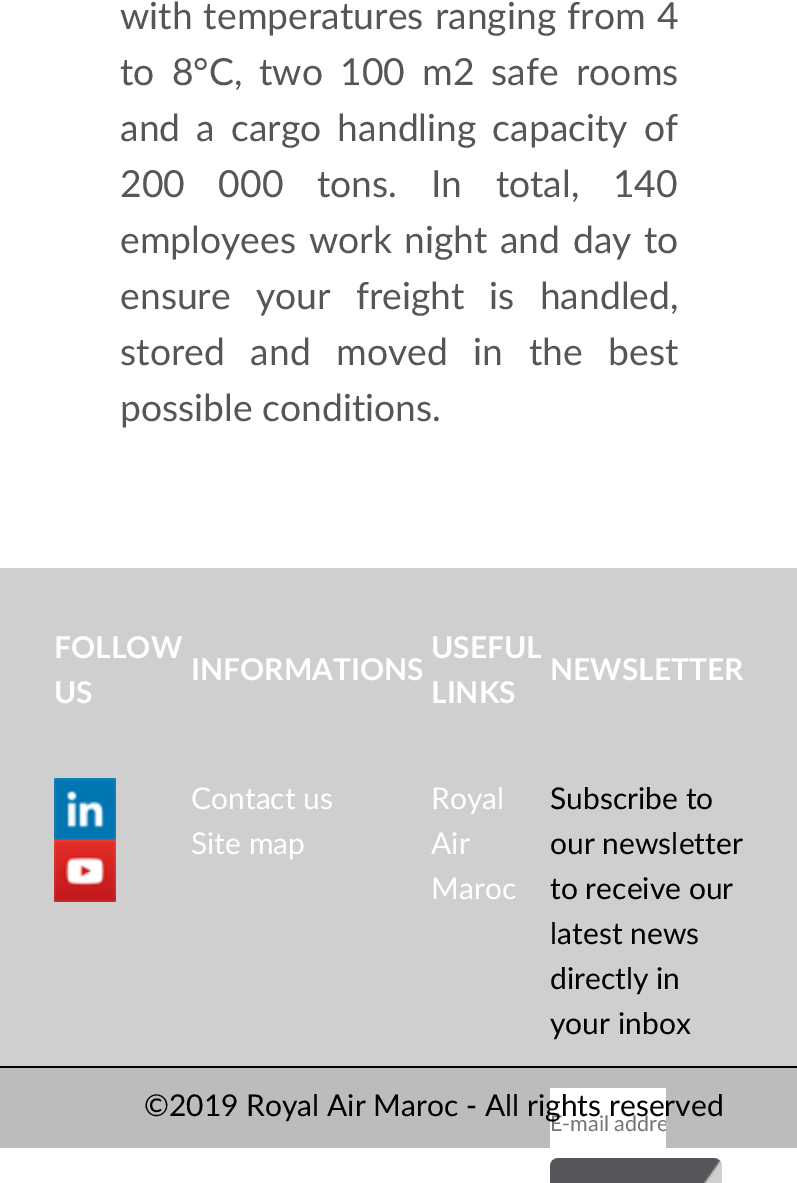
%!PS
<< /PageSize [797 1183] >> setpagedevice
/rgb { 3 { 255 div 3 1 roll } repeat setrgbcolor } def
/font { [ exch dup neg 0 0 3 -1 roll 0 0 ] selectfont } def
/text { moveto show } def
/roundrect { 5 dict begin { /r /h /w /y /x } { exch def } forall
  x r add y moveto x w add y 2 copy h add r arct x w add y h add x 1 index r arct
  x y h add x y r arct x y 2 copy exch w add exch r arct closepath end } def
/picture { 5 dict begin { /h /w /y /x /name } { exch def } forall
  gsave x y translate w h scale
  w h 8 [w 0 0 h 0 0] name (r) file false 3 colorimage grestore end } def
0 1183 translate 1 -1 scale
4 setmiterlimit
255 255 255 rgb
0 0 797 1183 rectfill
208 207 207 rgb
0 568 797 498 rectfill
0 0 0 rgb
0 1066 797 2 rectfill
(img_01.rgb) 54 778 62 62 picture
(img_02.rgb) 54 840 62 62 picture
188 188 188 rgb
0 1068 797 80 rectfill
255 255 255 rgb
550 1088 116 60 rectfill
208 207 207 rgb
550 1158 172 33 8 roundrect fill
(img_03.rgb) 550 1158 171 25 picture
/Lato-Regular 37.3 font
85 86 90 rgb
120 29 moveto 1.5 0 32 (with temperatures ranging from 4) widthshow
120 85 moveto 7.5 0 32 (to 8°C, two 100 m2 safe rooms) widthshow
120 141 moveto 6.5 0 32 (and a cargo handling capacity of) widthshow
120 197 moveto 24 0 32 (200 000 tons. In total, 140) widthshow
120 253 moveto 3 0 32 (employees work night and day to) widthshow
120 309 moveto 15.5 0 32 (ensure your freight is handled,) widthshow
120 365 moveto 16 0 32 (stored and moved in the best) widthshow
(possible conditions.) 120 421 text
/Lato-Bold 30 font
255 255 255 rgb
(FOLLOW) 54 658 text
(US) 54 703 text
(INFORMATIONS) 191 680 text
(USEFUL) 431 658 text
(LINKS) 431 703 text
(NEWSLETTER) 550 680 text
/Lato-Regular 30 font
(Contact us) 191 809 text
(Site map) 191 854 text
(Royal) 431 809 text
(Air) 431 854 text
(Maroc) 431 899 text
0 0 0 rgb
(Subscribe to) 550 809 text
(our newsletter) 550 854 text
(to receive our) 550 899 text
(latest news) 550 944 text
(directly in) 550 989 text
(your inbox) 550 1034 text
gsave
550 1110 116 26 rectclip
/Lato-Regular 21.5 font
117 117 117 rgb
(E-mail addre) 550 1131 text
grestore
(©2019 Royal Air Maroc - All rights reserved) 144 1116 text
showpage
